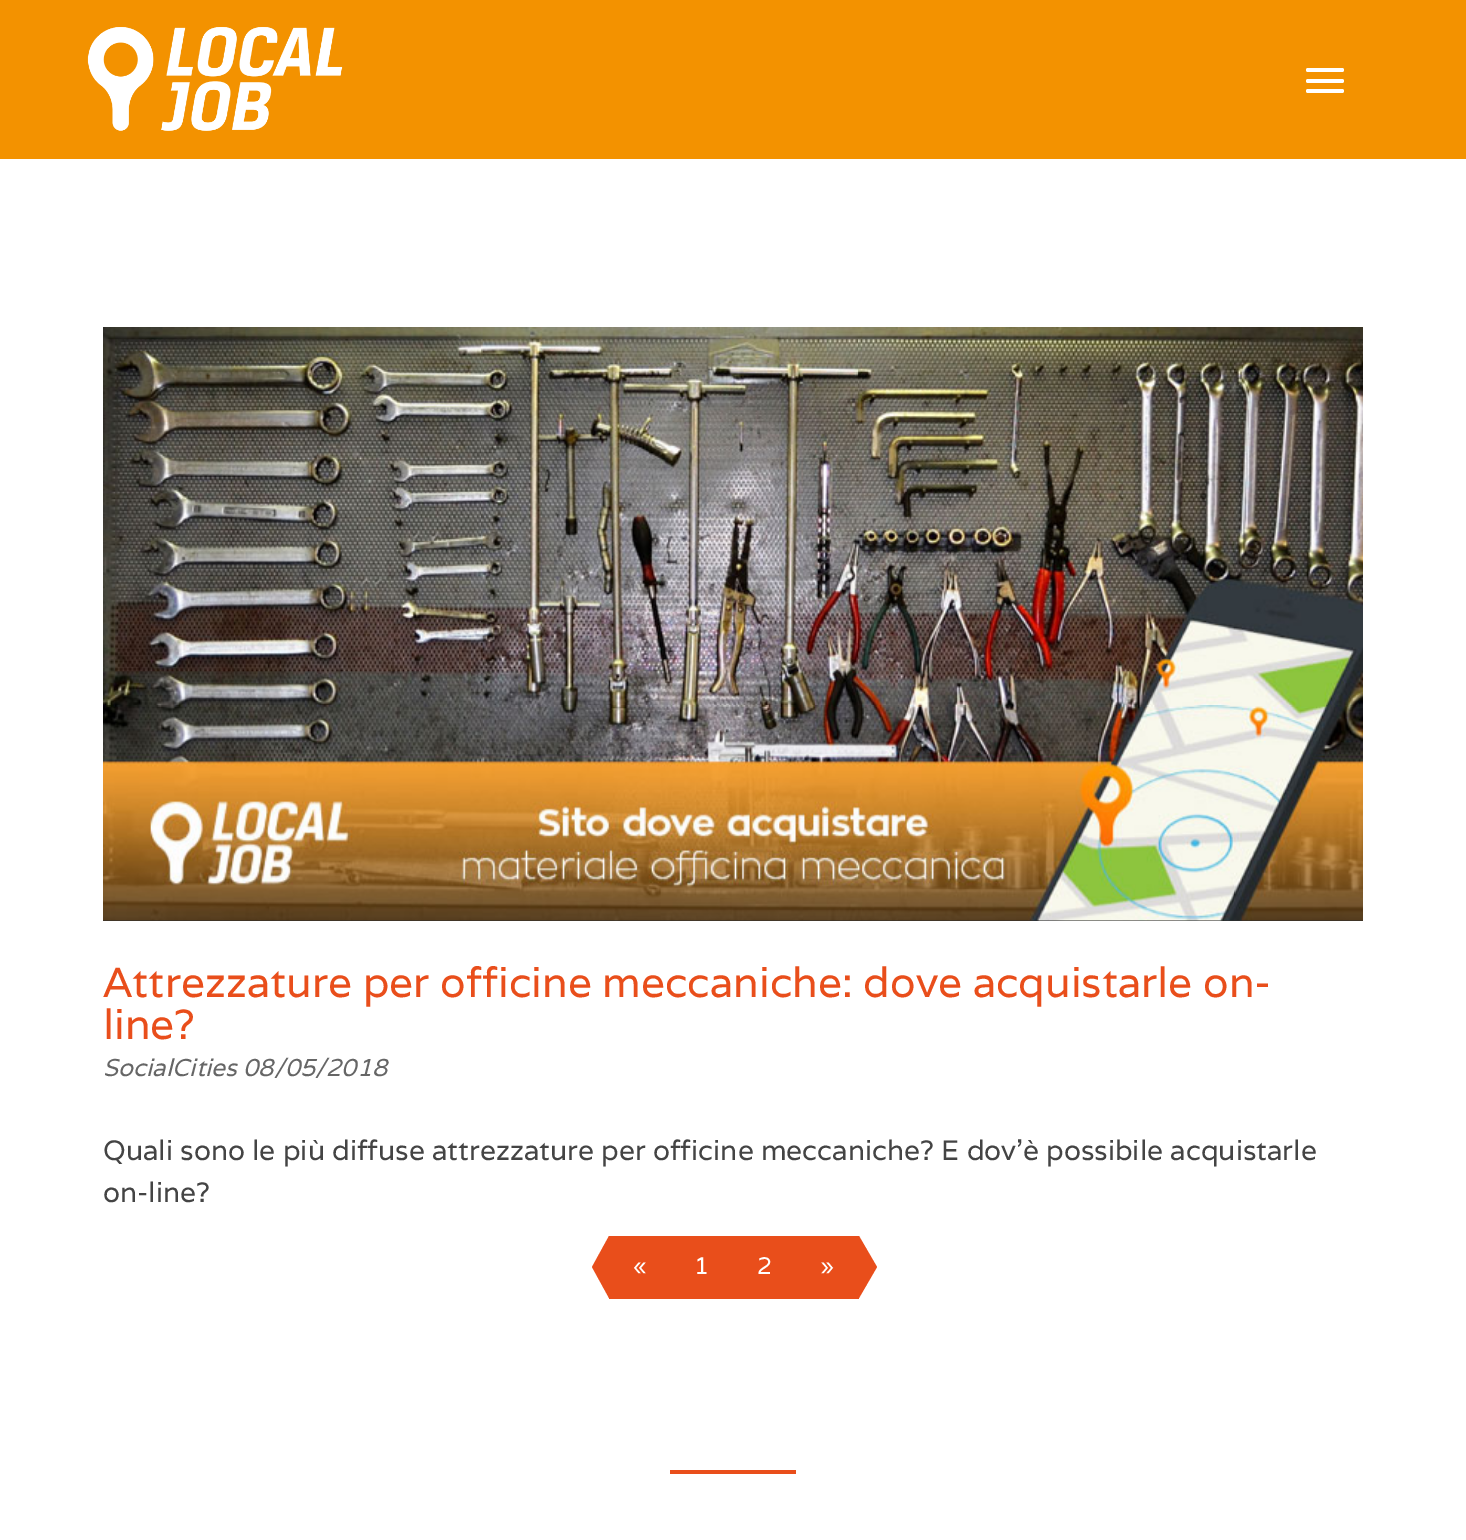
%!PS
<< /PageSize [1466 1540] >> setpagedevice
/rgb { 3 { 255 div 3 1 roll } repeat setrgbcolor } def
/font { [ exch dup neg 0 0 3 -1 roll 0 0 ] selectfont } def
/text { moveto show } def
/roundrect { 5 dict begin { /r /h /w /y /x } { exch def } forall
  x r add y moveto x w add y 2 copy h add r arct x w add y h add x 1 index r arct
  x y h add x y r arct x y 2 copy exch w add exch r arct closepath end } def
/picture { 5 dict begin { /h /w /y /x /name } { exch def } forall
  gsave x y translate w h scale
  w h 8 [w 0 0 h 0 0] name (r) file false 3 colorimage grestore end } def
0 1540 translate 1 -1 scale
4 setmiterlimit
255 255 255 rgb
0 0 1466 1540 rectfill
243 146 0 rgb
0 0 1466 159 rectfill
(img_01.rgb) 87 27 256 104 picture
255 255 255 rgb
1306 68 38 4 2 roundrect fill
1306 79 38 4 2 roundrect fill
1306 89 38 4 2 roundrect fill
48 48 48 rgb
103 920 1260 1 rectfill
(img_02.rgb) 103 327 1260 594 picture
233 78 27 rgb
609 1236 250 63 rectfill
609 1236 moveto 0 62 rlineto -17 -31 rlineto closepath fill
859 1298 moveto 0 -62 rlineto 18 31 rlineto closepath fill
670 1470 126 4 rectfill
/Varela-Regular 42 font
(Attrezzature per officine meccaniche: dove acquistarle on-) 103 997 text
(line?) 103 1039 text
/Varela-Italic 24.4 font
102 102 102 rgb
(SocialCities 08/05/2018) 103 1076 text
/Varela-Regular 28 font
68 68 68 rgb
(Quali sono le più diffuse attrezzature per officine meccaniche? E dov’è possibile acquistarle) 103 1160 text
(on-line?) 103 1202 text
/Varela-Regular 24 font
255 255 255 rgb
(«) 633 1274 text
(1) 694 1274 text
(2) 757 1274 text
(») 820 1274 text
showpage
